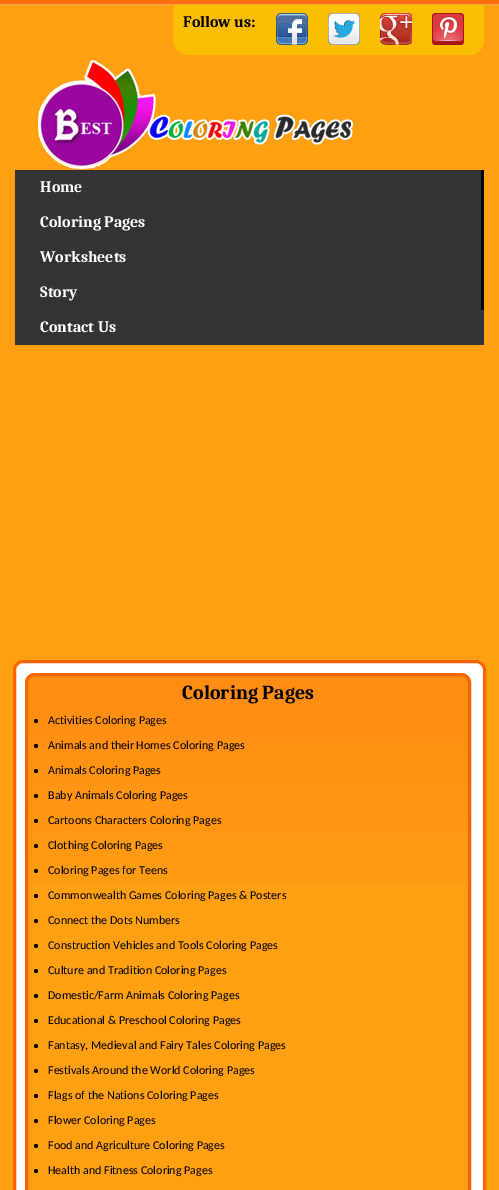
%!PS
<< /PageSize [499 1190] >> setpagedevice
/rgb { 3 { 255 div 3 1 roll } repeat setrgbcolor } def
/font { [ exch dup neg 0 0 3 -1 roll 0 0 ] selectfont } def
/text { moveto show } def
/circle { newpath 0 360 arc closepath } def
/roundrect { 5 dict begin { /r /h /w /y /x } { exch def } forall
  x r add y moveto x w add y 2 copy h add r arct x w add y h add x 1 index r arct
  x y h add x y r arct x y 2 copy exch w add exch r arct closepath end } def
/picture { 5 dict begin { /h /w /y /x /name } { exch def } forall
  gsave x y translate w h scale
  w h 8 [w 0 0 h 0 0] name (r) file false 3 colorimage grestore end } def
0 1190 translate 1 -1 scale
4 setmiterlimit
255 160 18 rgb
0 0 499 1190 rectfill
(img_01.rgb) 0 0 499 6 picture
(img_02.rgb) 173 5 311 50 picture
(img_03.rgb) 276 13 32 32 picture
(img_04.rgb) 328 13 32 32 picture
(img_05.rgb) 380 13 32 32 picture
(img_06.rgb) 432 13 32 32 picture
(img_07.rgb) 38 60 315 109 picture
51 51 51 rgb
15 170 469 175 rectfill
0 0 0 rgb
481 170 3 140 rectfill
255 255 255 rgb
14.5 661.5 470 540 8.5 roundrect gsave fill grestore
251 101 0 rgb
3 setlinewidth
stroke
255 160 18 rgb
25 673 446 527 10 roundrect fill
(img_08.rgb) 25 676 446 208 picture
251 101 0 rgb
26.5 674.5 443 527 8.5 roundrect stroke
0 0 0 rgb
36 721 2 circle fill
36 746 2 circle fill
36 771 2 circle fill
36 796 2 circle fill
36 821 2 circle fill
36 846 2 circle fill
36 871 2 circle fill
36 896 2 circle fill
36 921 2 circle fill
36 946 2 circle fill
36 971 2 circle fill
36 996 2 circle fill
36 1021 2 circle fill
36 1046 2 circle fill
36 1071 2 circle fill
36 1096 2 circle fill
36 1121 2 circle fill
36 1146 2 circle fill
36 1171 2 circle fill
/Caladea-Bold 16 font
(Follow us:) 183 27 text
255 255 255 rgb
(Home) 40 192 text
(Coloring Pages) 40 227 text
(Worksheets) 40 262 text
(Story) 40 297 text
(Contact Us) 40 332 text
/Caladea-Bold 20 font
0 0 0 rgb
(Coloring Pages) 182 699 text
/Carlito-Regular 12 font
(Activities Coloring Pages) 48 724 text
(Animals and their Homes Coloring Pages) 48 749 text
(Animals Coloring Pages) 48 774 text
(Baby Animals Coloring Pages) 48 799 text
(Cartoons Characters Coloring Pages) 48 824 text
(Clothing Coloring Pages) 48 849 text
(Coloring Pages for Teens) 48 874 text
(Commonwealth Games Coloring Pages & Posters) 48 899 text
(Connect the Dots Numbers) 48 924 text
(Construction Vehicles and Tools Coloring Pages) 48 949 text
(Culture and Tradition Coloring Pages) 48 974 text
(Domestic/Farm Animals Coloring Pages) 48 999 text
(Educational & Preschool Coloring Pages) 48 1024 text
(Fantasy, Medieval and Fairy Tales Coloring Pages) 48 1049 text
(Festivals Around the World Coloring Pages) 48 1074 text
(Flags of the Nations Coloring Pages) 48 1099 text
(Flower Coloring Pages) 48 1124 text
(Food and Agriculture Coloring Pages) 48 1149 text
(Health and Fitness Coloring Pages) 48 1174 text
showpage
